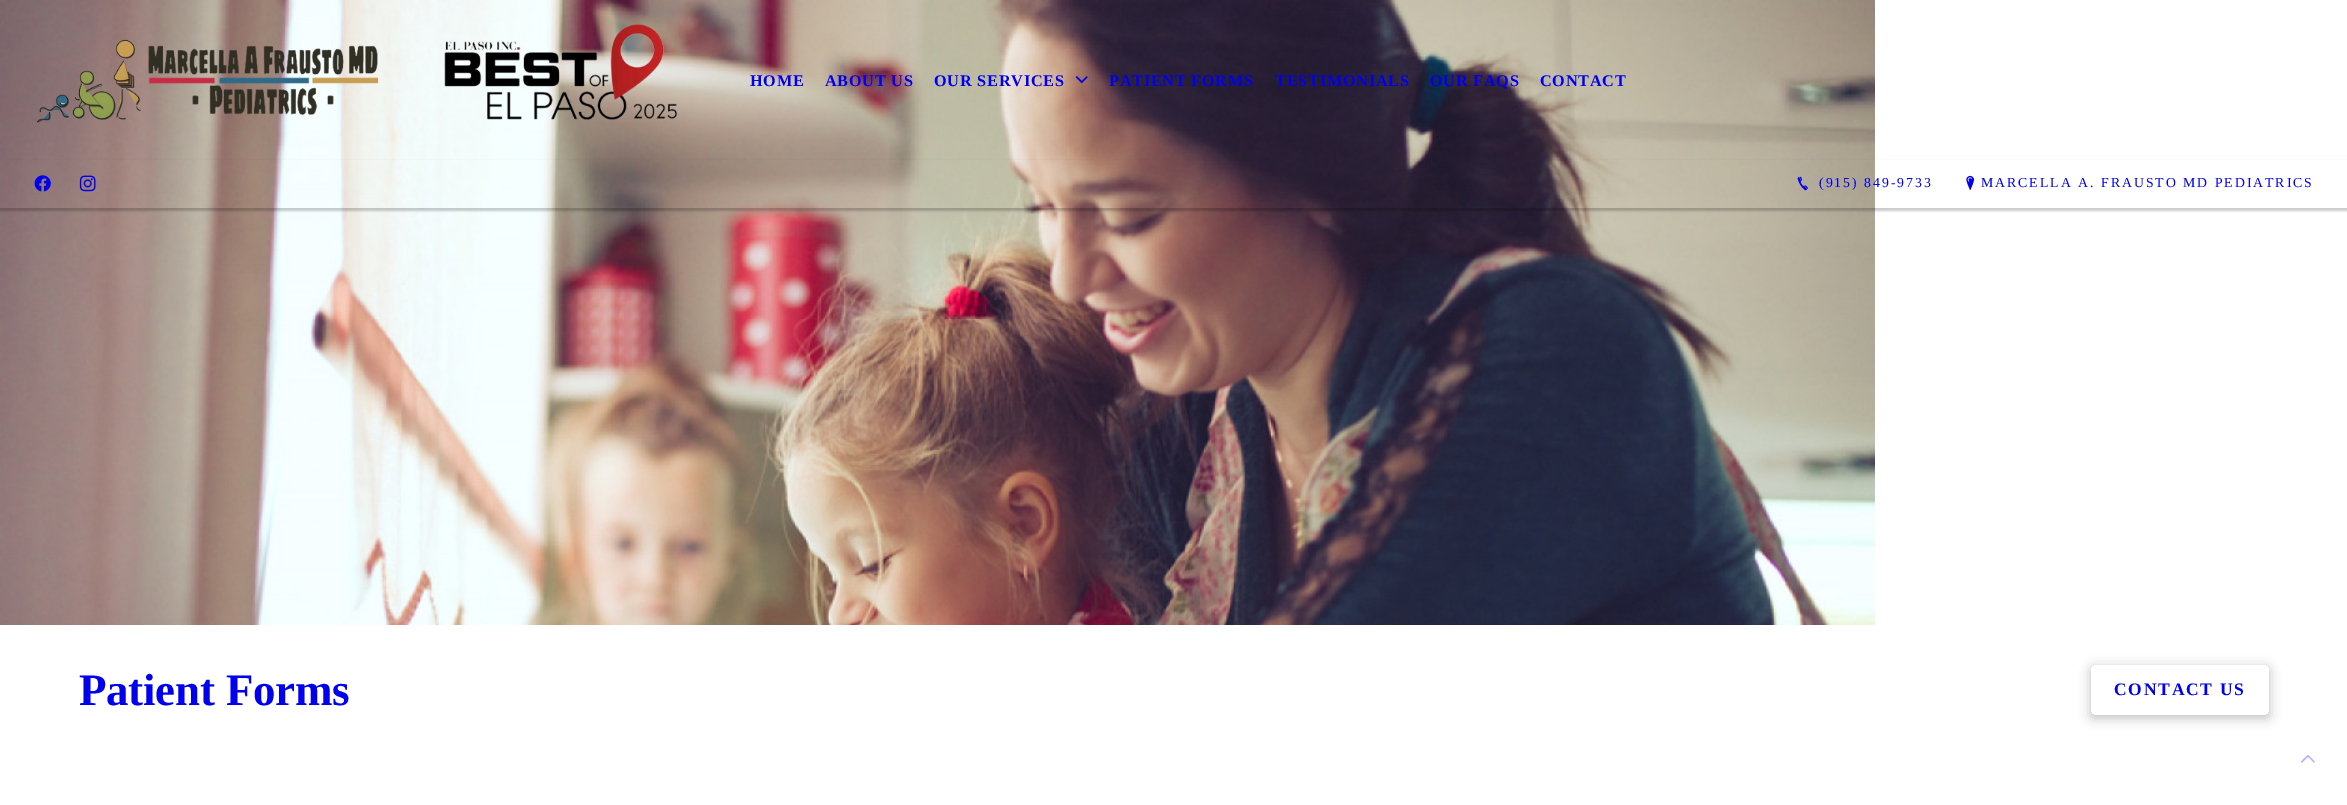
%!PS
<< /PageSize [2347 805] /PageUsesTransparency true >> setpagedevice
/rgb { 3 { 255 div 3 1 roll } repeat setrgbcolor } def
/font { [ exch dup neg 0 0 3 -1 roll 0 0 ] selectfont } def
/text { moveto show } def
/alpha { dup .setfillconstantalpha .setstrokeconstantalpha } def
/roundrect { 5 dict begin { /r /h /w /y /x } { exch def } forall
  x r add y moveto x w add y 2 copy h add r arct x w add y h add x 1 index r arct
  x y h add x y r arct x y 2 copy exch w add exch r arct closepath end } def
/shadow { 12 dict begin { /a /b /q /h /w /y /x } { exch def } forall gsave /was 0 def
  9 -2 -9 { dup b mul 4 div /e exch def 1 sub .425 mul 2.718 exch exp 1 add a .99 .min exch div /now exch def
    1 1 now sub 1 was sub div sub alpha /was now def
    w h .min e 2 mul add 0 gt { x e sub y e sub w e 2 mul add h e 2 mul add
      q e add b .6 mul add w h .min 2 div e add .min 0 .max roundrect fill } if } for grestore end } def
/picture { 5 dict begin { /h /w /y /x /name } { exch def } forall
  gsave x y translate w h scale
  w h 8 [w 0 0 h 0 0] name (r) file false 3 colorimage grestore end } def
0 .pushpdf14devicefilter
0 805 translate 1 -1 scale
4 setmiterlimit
255 255 255 rgb
0 0 2347 805 rectfill
(img_06.rgb) 0 0 1875 625 picture
(img_01.rgb) 36 24 642 99 picture
gsave
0 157 moveto 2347 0 rlineto 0 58 rlineto -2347 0 rlineto closepath 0 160 moveto 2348 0 rlineto 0 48 rlineto -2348 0 rlineto closepath eoclip newpath
0 0 0 rgb
-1 161 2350 50 0 1 0.2 shadow
grestore
(img_02.rgb) 34 175 17 17 picture
(img_03.rgb) 79 175 17 17 picture
(img_04.rgb) 1797 176 11 15 picture
(img_05.rgb) 1966 175 9 16 picture
gsave
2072 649 moveto 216 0 rlineto 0 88 rlineto -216 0 rlineto closepath 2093.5 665 moveto 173 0 rlineto 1.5 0 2.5 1 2.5 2.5 rcurveto 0 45 rlineto 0 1.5 -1 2.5 -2.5 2.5 rcurveto -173 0 rlineto -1.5 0 -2.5 -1 -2.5 -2.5 rcurveto 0 -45 rlineto 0 -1.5 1 -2.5 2.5 -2.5 rcurveto closepath eoclip newpath
0 0 0 rgb
2091 668 178 50 2.5 6 0.25 shadow
grestore
/LiberationSerif-Bold 16.25 font
0 0 238 rgb
750 86 moveto 0.75 0 (HOME) ashow
825 86 moveto 0.75 0 (ABOUT US) ashow
934 86 moveto 0.75 0 (OUR SERVICES) ashow
/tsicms-Bold 15 font
1074 86 moveto 0.75 0 (-) ashow
/LiberationSerif-Bold 16.25 font
1109 86 moveto 0.75 0 (PATIENT FORMS) ashow
1275 86 moveto 0.75 0 (TESTIMONIALS) ashow
1430 86 moveto 0.75 0 (OUR FAQS) ashow
1540 86 moveto 0.75 0 (CONTACT) ashow
/LiberationSerif-Regular 13.75 font
1819 187 moveto 2 0 (\(915\) 849-9733) ashow
1981 187 moveto 2 0 (MARCELLA A. FRAUSTO MD PEDIATRICS) ashow
/LiberationSerif-Bold 45 font
79 705 moveto -0.25 0 (Patient Forms) ashow
/LiberationSerif-Bold 17.5 font
2114 695 moveto 1.75 0 (CONTACT US) ashow
/tsicms-Regular 18 font
179 179 250 rgb
(+) 2301 766 text
.poppdf14devicefilter showpage
